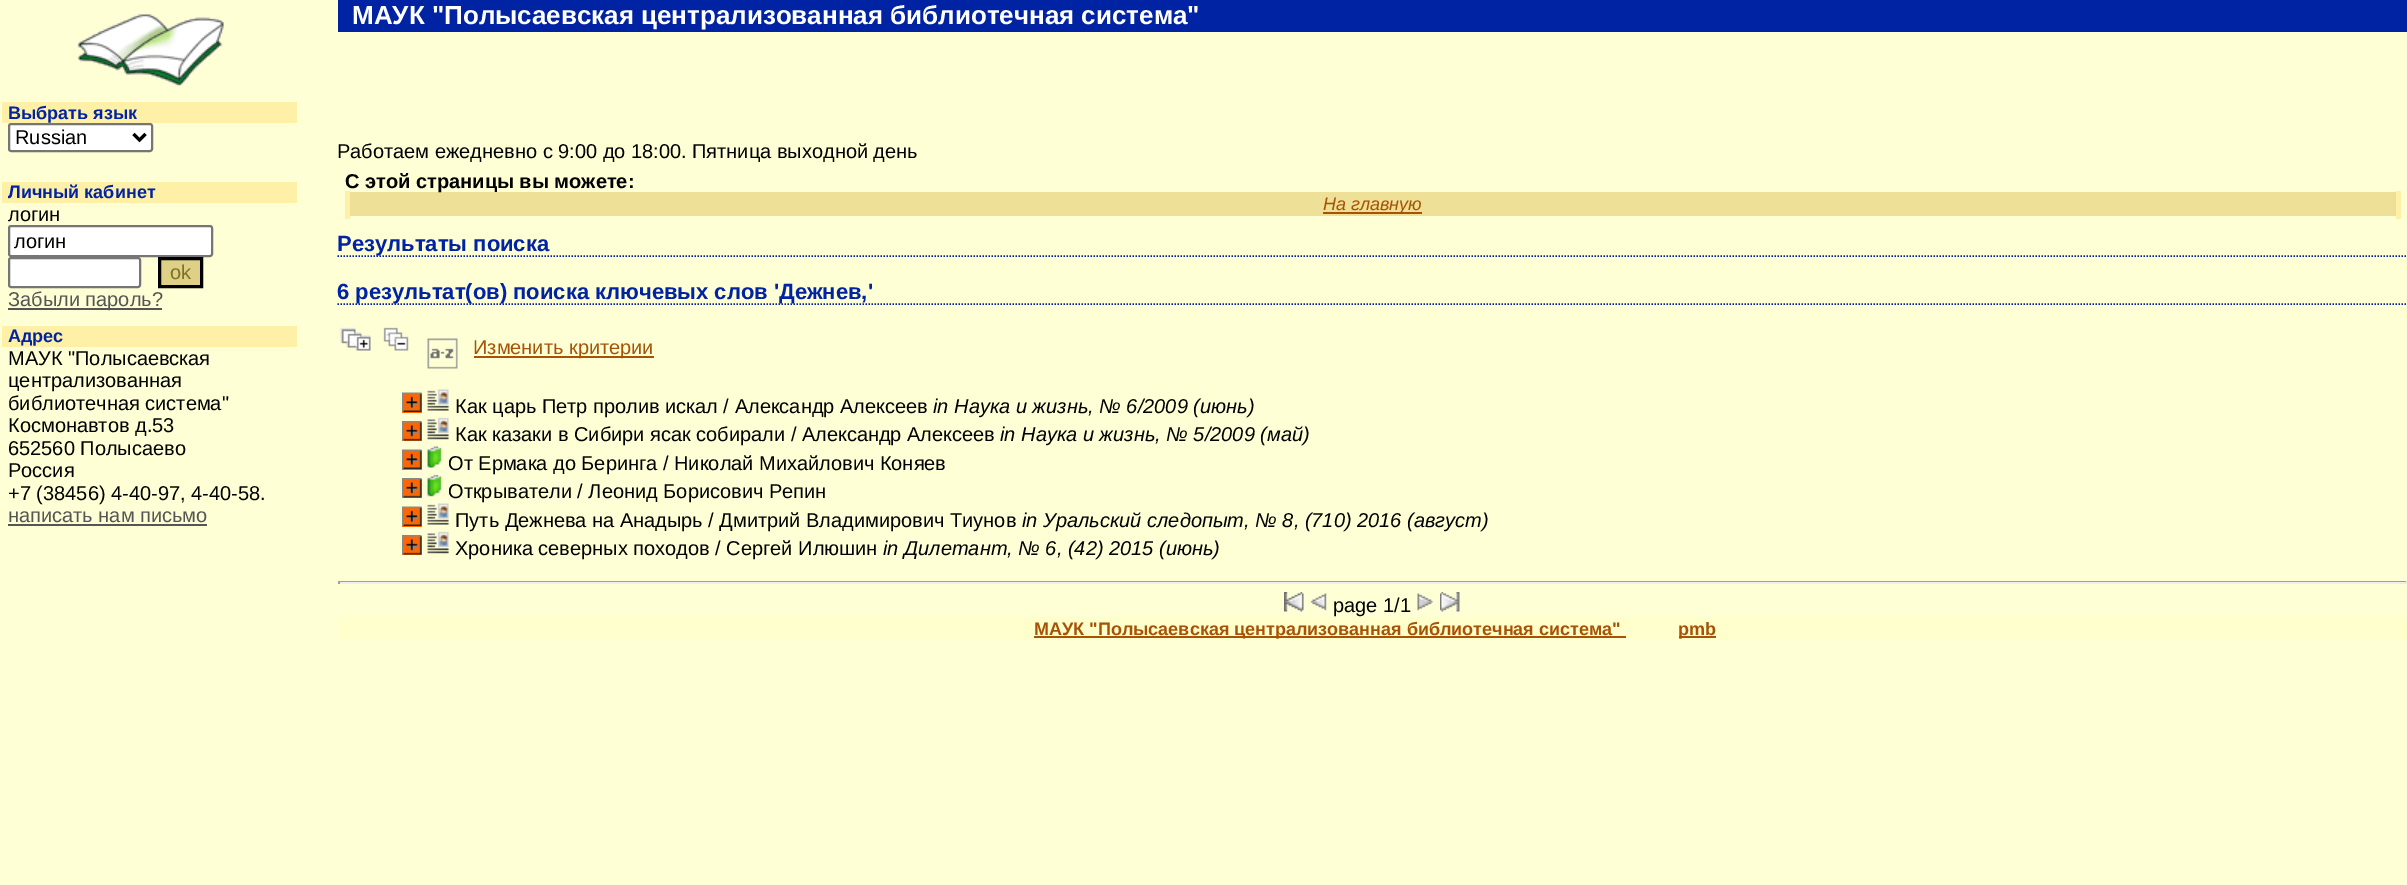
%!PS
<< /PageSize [2407 885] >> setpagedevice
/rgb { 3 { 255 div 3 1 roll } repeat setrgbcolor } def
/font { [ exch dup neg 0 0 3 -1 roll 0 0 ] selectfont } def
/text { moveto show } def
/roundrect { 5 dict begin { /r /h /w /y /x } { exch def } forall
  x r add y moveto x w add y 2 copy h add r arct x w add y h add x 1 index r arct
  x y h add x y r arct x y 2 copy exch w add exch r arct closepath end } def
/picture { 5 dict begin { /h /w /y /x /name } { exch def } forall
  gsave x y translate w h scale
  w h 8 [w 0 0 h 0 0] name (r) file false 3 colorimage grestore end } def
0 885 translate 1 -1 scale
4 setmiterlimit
255 255 213 rgb
0 0 2407 885 rectfill
0 35 164 rgb
338 0 2069 32 rectfill
(img_01.rgb) 77 14 147 72 picture
255 240 167 rgb
2 102 295 21 rectfill
255 255 255 rgb
9 124 143 27 2 roundrect gsave fill grestore
118 118 118 rgb
2 setlinewidth
stroke
0 0 0 rgb
3 setlinewidth
133.5 134 moveto 6 6 rlineto 6 -6 rlineto stroke
255 240 167 rgb
2 182 295 21 rectfill
255 255 255 rgb
9 226 203 30 2 roundrect gsave fill grestore
118 118 118 rgb
2 setlinewidth
stroke
255 255 255 rgb
9 258 131 29 2 roundrect gsave fill grestore
118 118 118 rgb
stroke
223 208 135 rgb
159.5 258.5 moveto 42 0 rlineto 0 28 rlineto -42 0 rlineto closepath gsave fill grestore
0 0 0 rgb
3 setlinewidth
stroke
85 85 85 rgb
8 308 154 2 rectfill
255 240 167 rgb
2 326 295 21 rectfill
85 85 85 rgb
8 524 199 2 rectfill
239 224 151 rgb
350 192 2046 24 rectfill
255 240 167 rgb
2396 191 5 28 rectfill
345 191 5 28 rectfill
167 82 4 rgb
1323 212 99 2 rectfill
0 35 164 rgb
1.5 setlinewidth
[1.5 1.5] 0 setdash
337.5 256 moveto 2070 0 rlineto stroke
337.5 304 moveto 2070 0 rlineto stroke
(img_02.rgb) 340 327 31 24 picture
(img_03.rgb) 383 327 26 24 picture
(img_04.rgb) 427 338 31 31 picture
167 82 4 rgb
474 356 180 2 rectfill
255 102 0 rgb
402 393 20 20 rectfill
(img_05.rgb) 402 392 20 20 picture
(img_06.rgb) 427 389 22 22 picture
402 422 20 19 rectfill
(img_07.rgb) 402 421 20 20 picture
(img_08.rgb) 427 417 22 23 picture
402 450 20 20 rectfill
(img_05.rgb) 402 449 20 20 picture
(img_09.rgb) 426 446 16 22 picture
402 479 20 19 rectfill
(img_07.rgb) 402 478 20 20 picture
(img_10.rgb) 426 474 16 23 picture
402 507 20 20 rectfill
(img_05.rgb) 402 506 20 20 picture
(img_06.rgb) 427 503 22 22 picture
402 536 20 19 rectfill
(img_07.rgb) 402 535 20 20 picture
(img_08.rgb) 427 531 22 23 picture
159 159 159 rgb
338 581 2069 1 rectfill
238 238 238 rgb
2406 581 1 3 rectfill
338 582 2069 2 rectfill
159 159 159 rgb
338 581 2 3 rectfill
(img_11.rgb) 1284 592 20 20 picture
(img_12.rgb) 1310 593 17 18 picture
(img_13.rgb) 1417 593 16 18 picture
(img_14.rgb) 1440 592 20 20 picture
255 255 204 rgb
338 617 2069 22 rectfill
167 82 4 rgb
1034 636 592 2 rectfill
1679 636 37 2 rectfill
/LiberationSans-Bold 26 font
255 255 255 rgb
(МАУК "Полысаевская централизованная библиотечная система") 352 24 text
/LiberationSans-Bold 18 font
0 35 164 rgb
(Выбрать язык) 8 119 text
/LiberationSans-Regular 20 font
0 0 0 rgb
(Russian) 15 144 text
/LiberationSans-Bold 18 font
0 35 164 rgb
(Личный кабинет) 8 198 text
/LiberationSans-Regular 20 font
0 0 0 rgb
(логин) 8 221 text
(логин) 14 248 text
127 112 39 rgb
(ok) 170 279 text
85 85 85 rgb
(Забыли пароль?) 8 306 text
/LiberationSans-Bold 18 font
0 35 164 rgb
(Адрес) 8 342 text
/LiberationSans-Regular 20 font
0 0 0 rgb
(МАУК "Полысаевская) 8 365 text
(централизованная) 8 387 text
(библиотечная система") 8 410 text
(Космонавтов д.53) 8 432 text
(652560 Полысаево) 8 455 text
(Россия) 8 477 text
(+7 \(38456\) 4-40-97, 4-40-58.) 8 500 text
85 85 85 rgb
(написать нам письмо) 8 522 text
0 0 0 rgb
(Работаем ежедневно с 9:00 до 18:00. Пятница выходной день) 337 158 text
/LiberationSans-Bold 20 font
(С этой страницы вы можете:) 345 188 text
/LiberationSans-Italic 18 font
167 82 4 rgb
(На главную) 1323 210 text
/LiberationSans-Bold 22 font
0 35 164 rgb
(Результаты поиска) 337 251 text
(6 результат\(ов\) поиска ключевых слов 'Дежнев,') 337 299 text
/LiberationSans-Regular 20 font
167 82 4 rgb
(Изменить критерии) 473 354 text
0 0 0 rgb
(Как царь Петр пролив искал / Александр Алексеев) 455 413 text
/LiberationSans-Italic 20 font
(in Наука и жизнь, № 6/2009 \(июнь\)) 933 413 text
/LiberationSans-Regular 20 font
(Как казаки в Сибири ясак собирали / Александр Алексеев) 455 441 text
/LiberationSans-Italic 20 font
(in Наука и жизнь, № 5/2009 \(май\)) 1000 441 text
/LiberationSans-Regular 20 font
(От Ермака до Беринга / Николай Михайлович Коняев) 448 470 text
(Открыватели / Леонид Борисович Репин) 448 498 text
(Путь Дежнева на Анадырь / Дмитрий Владимирович Тиунов) 455 527 text
/LiberationSans-Italic 20 font
(in Уральский следопыт, № 8, \(710\) 2016 \(август\)) 1022 527 text
/LiberationSans-Regular 20 font
(Хроника северных походов / Сергей Илюшин) 455 555 text
/LiberationSans-Italic 20 font
(in Дилетант, № 6, \(42\) 2015 \(июнь\)) 883 555 text
/LiberationSans-Regular 20 font
(page 1/1) 1333 612 text
/LiberationSans-Bold 18 font
167 82 4 rgb
(МАУК "Полысаевская централизованная библиотечная система") 1034 635 text
(pmb) 1678 635 text
showpage
